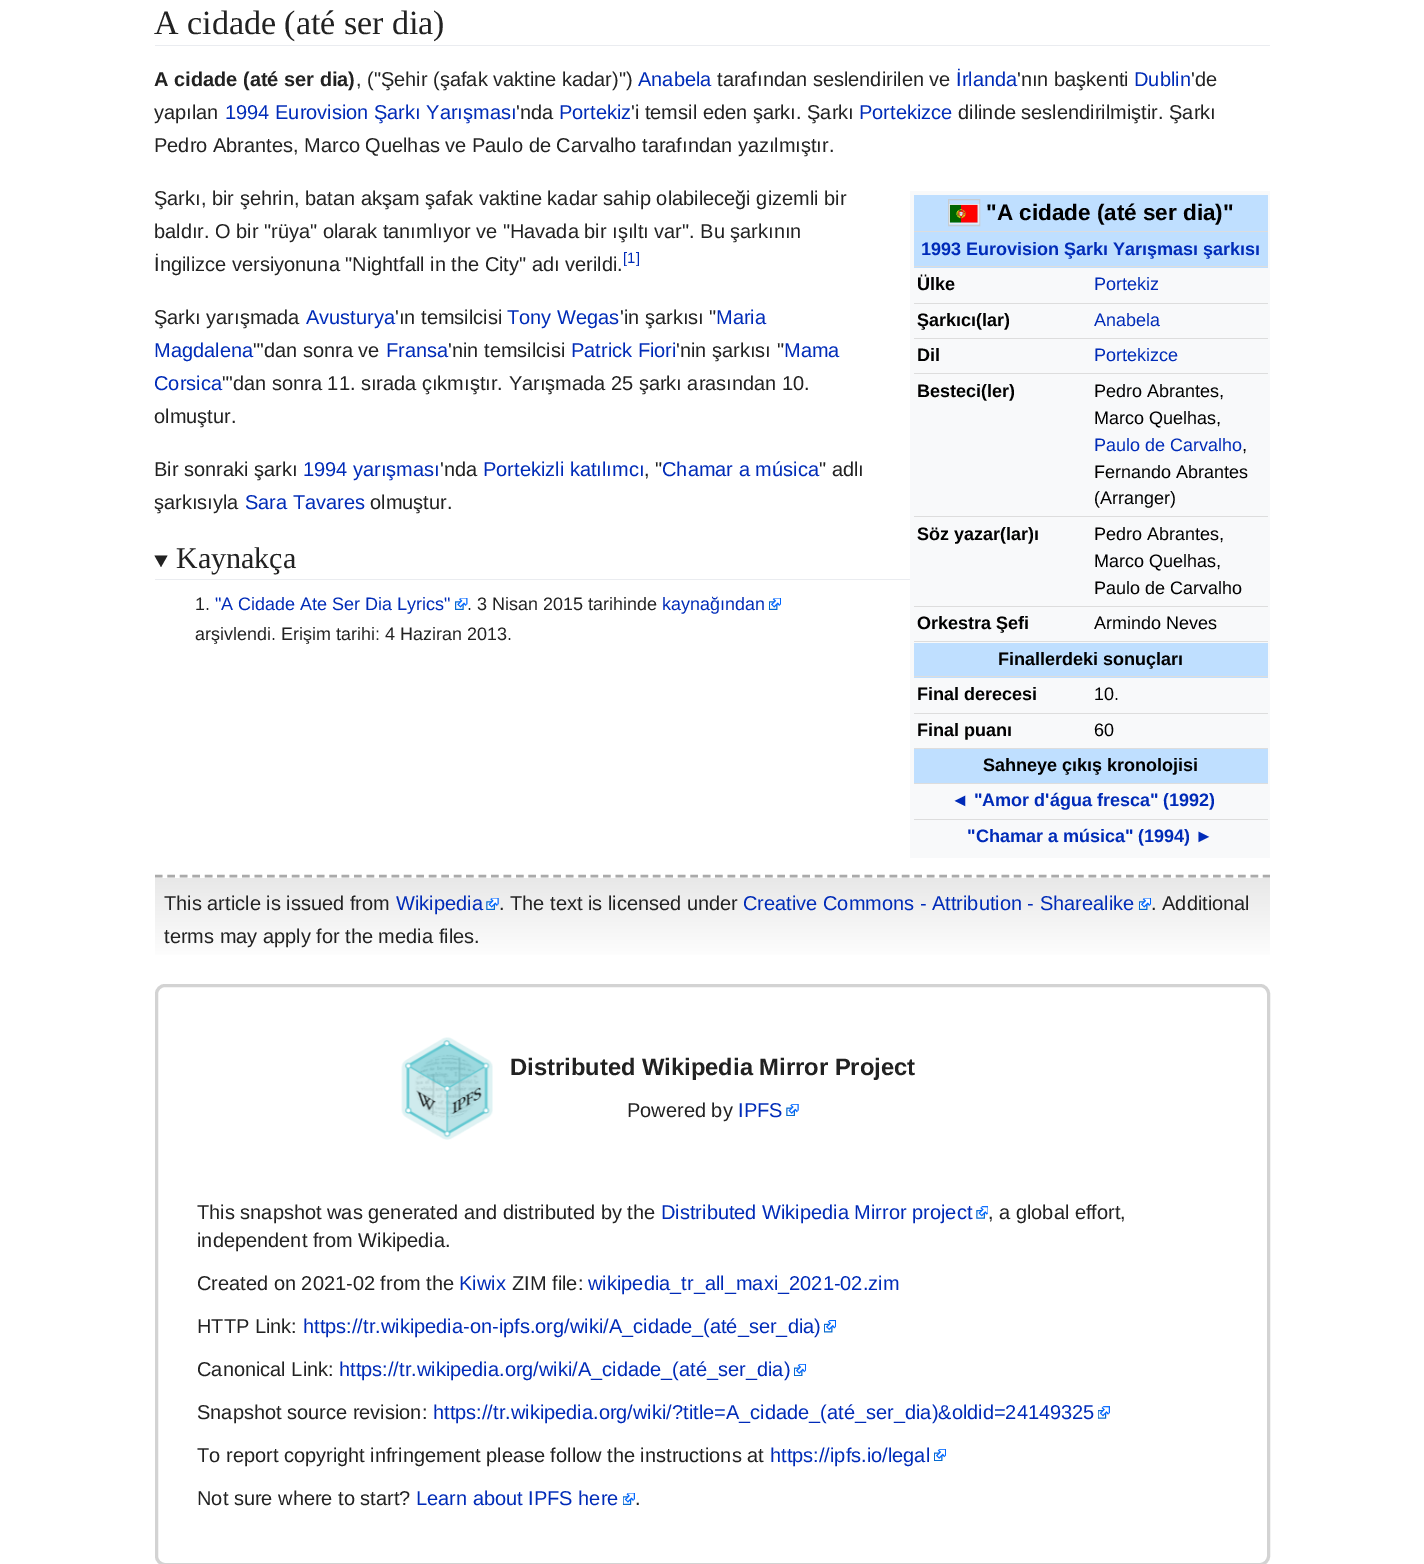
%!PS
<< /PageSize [1424 1564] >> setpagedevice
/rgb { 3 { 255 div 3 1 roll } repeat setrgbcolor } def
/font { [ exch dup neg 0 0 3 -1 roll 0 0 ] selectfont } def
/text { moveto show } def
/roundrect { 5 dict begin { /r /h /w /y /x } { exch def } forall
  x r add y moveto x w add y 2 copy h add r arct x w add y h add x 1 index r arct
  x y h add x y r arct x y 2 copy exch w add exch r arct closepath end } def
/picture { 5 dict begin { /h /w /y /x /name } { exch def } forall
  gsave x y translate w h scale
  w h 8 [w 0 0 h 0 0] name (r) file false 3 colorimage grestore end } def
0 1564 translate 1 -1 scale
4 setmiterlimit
255 255 255 rgb
0 0 1424 1564 rectfill
234 236 240 rgb
155 45 1115 1 rectfill
248 249 250 rgb
910 191 360 667 rectfill
191 223 255 rgb
914 195 354 73 rectfill
221 221 221 rgb
914 231 354 1 rectfill
200 204 209 rgb
948.5 199.5 31 26 rectstroke
234 236 240 rgb
949.5 204.5 29 19 rectstroke
(img_01.rgb) 949 204 29 19 picture
221 221 221 rgb
914 266 354 1 rectfill
914 303 354 1 rectfill
914 338 354 1 rectfill
914 373 354 1 rectfill
914 516 354 1 rectfill
914 606 354 1 rectfill
914 641 354 1 rectfill
191 223 255 rgb
914 643 354 35 rectfill
221 221 221 rgb
914 676 354 1 rectfill
914 713 354 1 rectfill
914 748 354 1 rectfill
191 223 255 rgb
914 749 354 34 rectfill
221 221 221 rgb
914 783 354 1 rectfill
914 819 354 1 rectfill
234 236 240 rgb
155 579 755 1 rectfill
34 34 34 rgb
154.5 555.5 moveto 13 0 rlineto -6.5 11.5 rlineto closepath fill
(img_02.rgb) 455 598 13 12 picture
(img_03.rgb) 769 598 12 12 picture
gsave 155 878 moveto 1115 0 rlineto 0 77 rlineto -1115 0 rlineto closepath clip newpath
<< /ShadingType 2 /ColorSpace /DeviceRGB /Coords [713 878 713 964] /Extend [true true] /Function << /FunctionType 2 /Domain [0 1] /C0 [0.91 0.91 0.91] /C1 [1 1 1] /N 1 >> >> shfill grestore
170 170 170 rgb
2.5 setlinewidth
[7.5 4.95] 0 setdash
155 876 moveto 1115 0 rlineto stroke
(img_04.rgb) 486 898 13 12 picture
(img_05.rgb) 1139 898 12 12 picture
211 211 211 rgb
3 setlinewidth
[] 0 setdash
156.5 985.5 1112 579 8.5 roundrect stroke
(img_06.rgb) 401 1037 92 103 picture
(img_07.rgb) 786 1104 13 12 picture
(img_08.rgb) 976 1206 12 13 picture
(img_09.rgb) 824 1320 12 13 picture
(img_10.rgb) 794 1364 12 12 picture
(img_11.rgb) 1098 1406 12 13 picture
(img_10.rgb) 934 1449 12 12 picture
(img_12.rgb) 623 1493 12 12 picture
/LiberationSerif-Regular 34 font
34 34 34 rgb
(A cidade \(até ser dia\)) 154 34 text
/LiberationSans-Bold 20 font
(A cidade \(até ser dia\)) 154 86 text
/LiberationSans-Regular 20 font
(, \("Şehir \(şafak vaktine kadar\)"\)) 356 86 text
0 43 184 rgb
(Anabela) 638 86 text
34 34 34 rgb
(tarafından seslendirilen ve) 717 86 text
0 43 184 rgb
(İrlanda) 956 86 text
34 34 34 rgb
('nın başkenti) 1017 86 text
0 43 184 rgb
(Dublin) 1134 86 text
34 34 34 rgb
('de) 1191 86 text
(yapılan) 154 119 text
0 43 184 rgb
(1994 Eurovision Şarkı Yarışması) 225 119 text
34 34 34 rgb
('nda) 516 119 text
0 43 184 rgb
(Portekiz) 559 119 text
34 34 34 rgb
('i temsil eden şarkı. Şarkı) 631 119 text
0 43 184 rgb
(Portekizce) 859 119 text
34 34 34 rgb
(dilinde seslendirilmiştir. Şarkı) 958 119 text
(Pedro Abrantes, Marco Quelhas ve Paulo de Carvalho tarafından yazılmıştır.) 154 152 text
(Şarkı, bir şehrin, batan akşam şafak vaktine kadar sahip olabileceği gizemli bir) 154 205 text
(baldır. O bir "rüya" olarak tanımlıyor ve "Havada bir ışıltı var". Bu şarkının) 154 238 text
(İngilizce versiyonuna "Nightfall in the City" adı verildi.) 154 271 text
/LiberationSans-Regular 15 font
0 43 184 rgb
([1]) 623 263 text
/LiberationSans-Bold 22.5 font
0 0 0 rgb
("A cidade \(até ser dia\)") 986 220 text
/LiberationSans-Bold 18 font
0 43 184 rgb
(1993 Eurovision Şarkı Yarışması şarkısı) 921 255 text
0 0 0 rgb
(Ülke) 917 290 text
/LiberationSans-Regular 18 font
0 43 184 rgb
(Portekiz) 1094 290 text
/LiberationSans-Bold 18 font
0 0 0 rgb
(Şarkıcı\(lar\)) 917 326 text
/LiberationSans-Regular 18 font
0 43 184 rgb
(Anabela) 1094 326 text
/LiberationSans-Bold 18 font
0 0 0 rgb
(Dil) 917 361 text
/LiberationSans-Regular 18 font
0 43 184 rgb
(Portekizce) 1094 361 text
/LiberationSans-Bold 18 font
0 0 0 rgb
(Besteci\(ler\)) 917 397 text
/LiberationSans-Regular 18 font
(Pedro Abrantes,) 1094 397 text
(Marco Quelhas,) 1094 424 text
0 43 184 rgb
(Paulo de Carvalho) 1094 451 text
0 0 0 rgb
(,) 1242 451 text
(Fernando Abrantes) 1094 478 text
(\(Arranger\)) 1094 504 text
/LiberationSans-Bold 18 font
(Söz yazar\(lar\)ı) 917 540 text
/LiberationSans-Regular 18 font
(Pedro Abrantes,) 1094 540 text
(Marco Quelhas,) 1094 567 text
(Paulo de Carvalho) 1094 594 text
/LiberationSans-Bold 18 font
(Orkestra Şefi) 917 629 text
/LiberationSans-Regular 18 font
(Armindo Neves) 1094 629 text
/LiberationSans-Bold 18 font
(Finallerdeki sonuçları) 998 665 text
(Final derecesi) 917 700 text
/LiberationSans-Regular 18 font
(10.) 1094 700 text
/LiberationSans-Bold 18 font
(Final puanı) 917 736 text
/LiberationSans-Regular 18 font
(60) 1094 736 text
/LiberationSans-Bold 18 font
(Sahneye çıkış kronolojisi) 983 771 text
0 43 184 rgb
(◄ "Amor d'água fresca" \(1992\)) 951 806 text
("Chamar a música" \(1994\) ►) 967 842 text
/LiberationSans-Regular 20 font
34 34 34 rgb
(Şarkı yarışmada) 154 324 text
0 43 184 rgb
(Avusturya) 306 324 text
34 34 34 rgb
('ın temsilcisi) 395 324 text
0 43 184 rgb
(Tony Wegas) 507 324 text
34 34 34 rgb
('in şarkısı ") 620 324 text
0 43 184 rgb
(Maria) 716 324 text
(Magdalena) 154 357 text
34 34 34 rgb
("'dan sonra ve) 253 357 text
0 43 184 rgb
(Fransa) 386 357 text
34 34 34 rgb
('nin temsilcisi) 448 357 text
0 43 184 rgb
(Patrick Fiori) 571 357 text
34 34 34 rgb
('nin şarkısı ") 676 357 text
0 43 184 rgb
(Mama) 784 357 text
(Corsica) 154 390 text
34 34 34 rgb
("'dan sonra 11. sırada çıkmıştır. Yarışmada 25 şarkı arasından 10.) 222 390 text
(olmuştur.) 154 423 text
(Bir sonraki şarkı) 154 476 text
0 43 184 rgb
(1994 yarışması) 303 476 text
34 34 34 rgb
('nda) 440 476 text
0 43 184 rgb
(Portekizli katılımcı) 483 476 text
34 34 34 rgb
(, ") 644 476 text
0 43 184 rgb
(Chamar a música) 662 476 text
34 34 34 rgb
(" adlı) 819 476 text
(şarkısıyla) 154 509 text
0 43 184 rgb
(Sara Tavares) 245 509 text
34 34 34 rgb
(olmuştur.) 370 509 text
/LiberationSerif-Regular 30 font
(Kaynakça) 176 568 text
/LiberationSans-Regular 18 font
(1.) 195 610 text
0 43 184 rgb
("A Cidade Ate Ser Dia Lyrics") 215 610 text
34 34 34 rgb
(. 3 Nisan 2015 tarihinde) 467 610 text
0 43 184 rgb
(kaynağından) 662 610 text
34 34 34 rgb
(arşivlendi. Erişim tarihi: 4 Haziran 2013.) 195 640 text
/LiberationSans-Regular 20 font
(This article is issued from) 164 910 text
0 43 184 rgb
(Wikipedia) 396 910 text
34 34 34 rgb
(. The text is licensed under) 499 910 text
0 43 184 rgb
(Creative Commons - Attribution - Sharealike) 743 910 text
34 34 34 rgb
(. Additional) 1151 910 text
(terms may apply for the media files.) 164 943 text
/LiberationSans-Bold 23.75 font
(Distributed Wikipedia Mirror Project) 510 1075 text
/LiberationSans-Regular 20 font
(Powered by) 627 1117 text
0 43 184 rgb
(IPFS) 738 1117 text
34 34 34 rgb
(This snapshot was generated and distributed by the) 197 1219 text
0 43 184 rgb
(Distributed Wikipedia Mirror project) 661 1219 text
34 34 34 rgb
(, a global effort,) 988 1219 text
(independent from Wikipedia.) 197 1247 text
(Created on 2021-02 from the) 197 1290 text
0 43 184 rgb
(Kiwix) 459 1290 text
34 34 34 rgb
(ZIM file:) 512 1290 text
0 43 184 rgb
(wikipedia_tr_all_maxi_2021-02.zim) 588 1290 text
34 34 34 rgb
(HTTP Link:) 197 1333 text
0 43 184 rgb
(https://tr.wikipedia-on-ipfs.org/wiki/A_cidade_\(até_ser_dia\)) 303 1333 text
34 34 34 rgb
(Canonical Link:) 197 1376 text
0 43 184 rgb
(https://tr.wikipedia.org/wiki/A_cidade_\(até_ser_dia\)) 339 1376 text
34 34 34 rgb
(Snapshot source revision:) 197 1419 text
0 43 184 rgb
(https://tr.wikipedia.org/wiki/?title=A_cidade_\(até_ser_dia\)&oldid=24149325) 433 1419 text
34 34 34 rgb
(To report copyright infringement please follow the instructions at) 197 1462 text
0 43 184 rgb
(https://ipfs.io/legal) 770 1462 text
34 34 34 rgb
(Not sure where to start?) 197 1505 text
0 43 184 rgb
(Learn about IPFS here) 416 1505 text
34 34 34 rgb
(.) 635 1505 text
showpage
